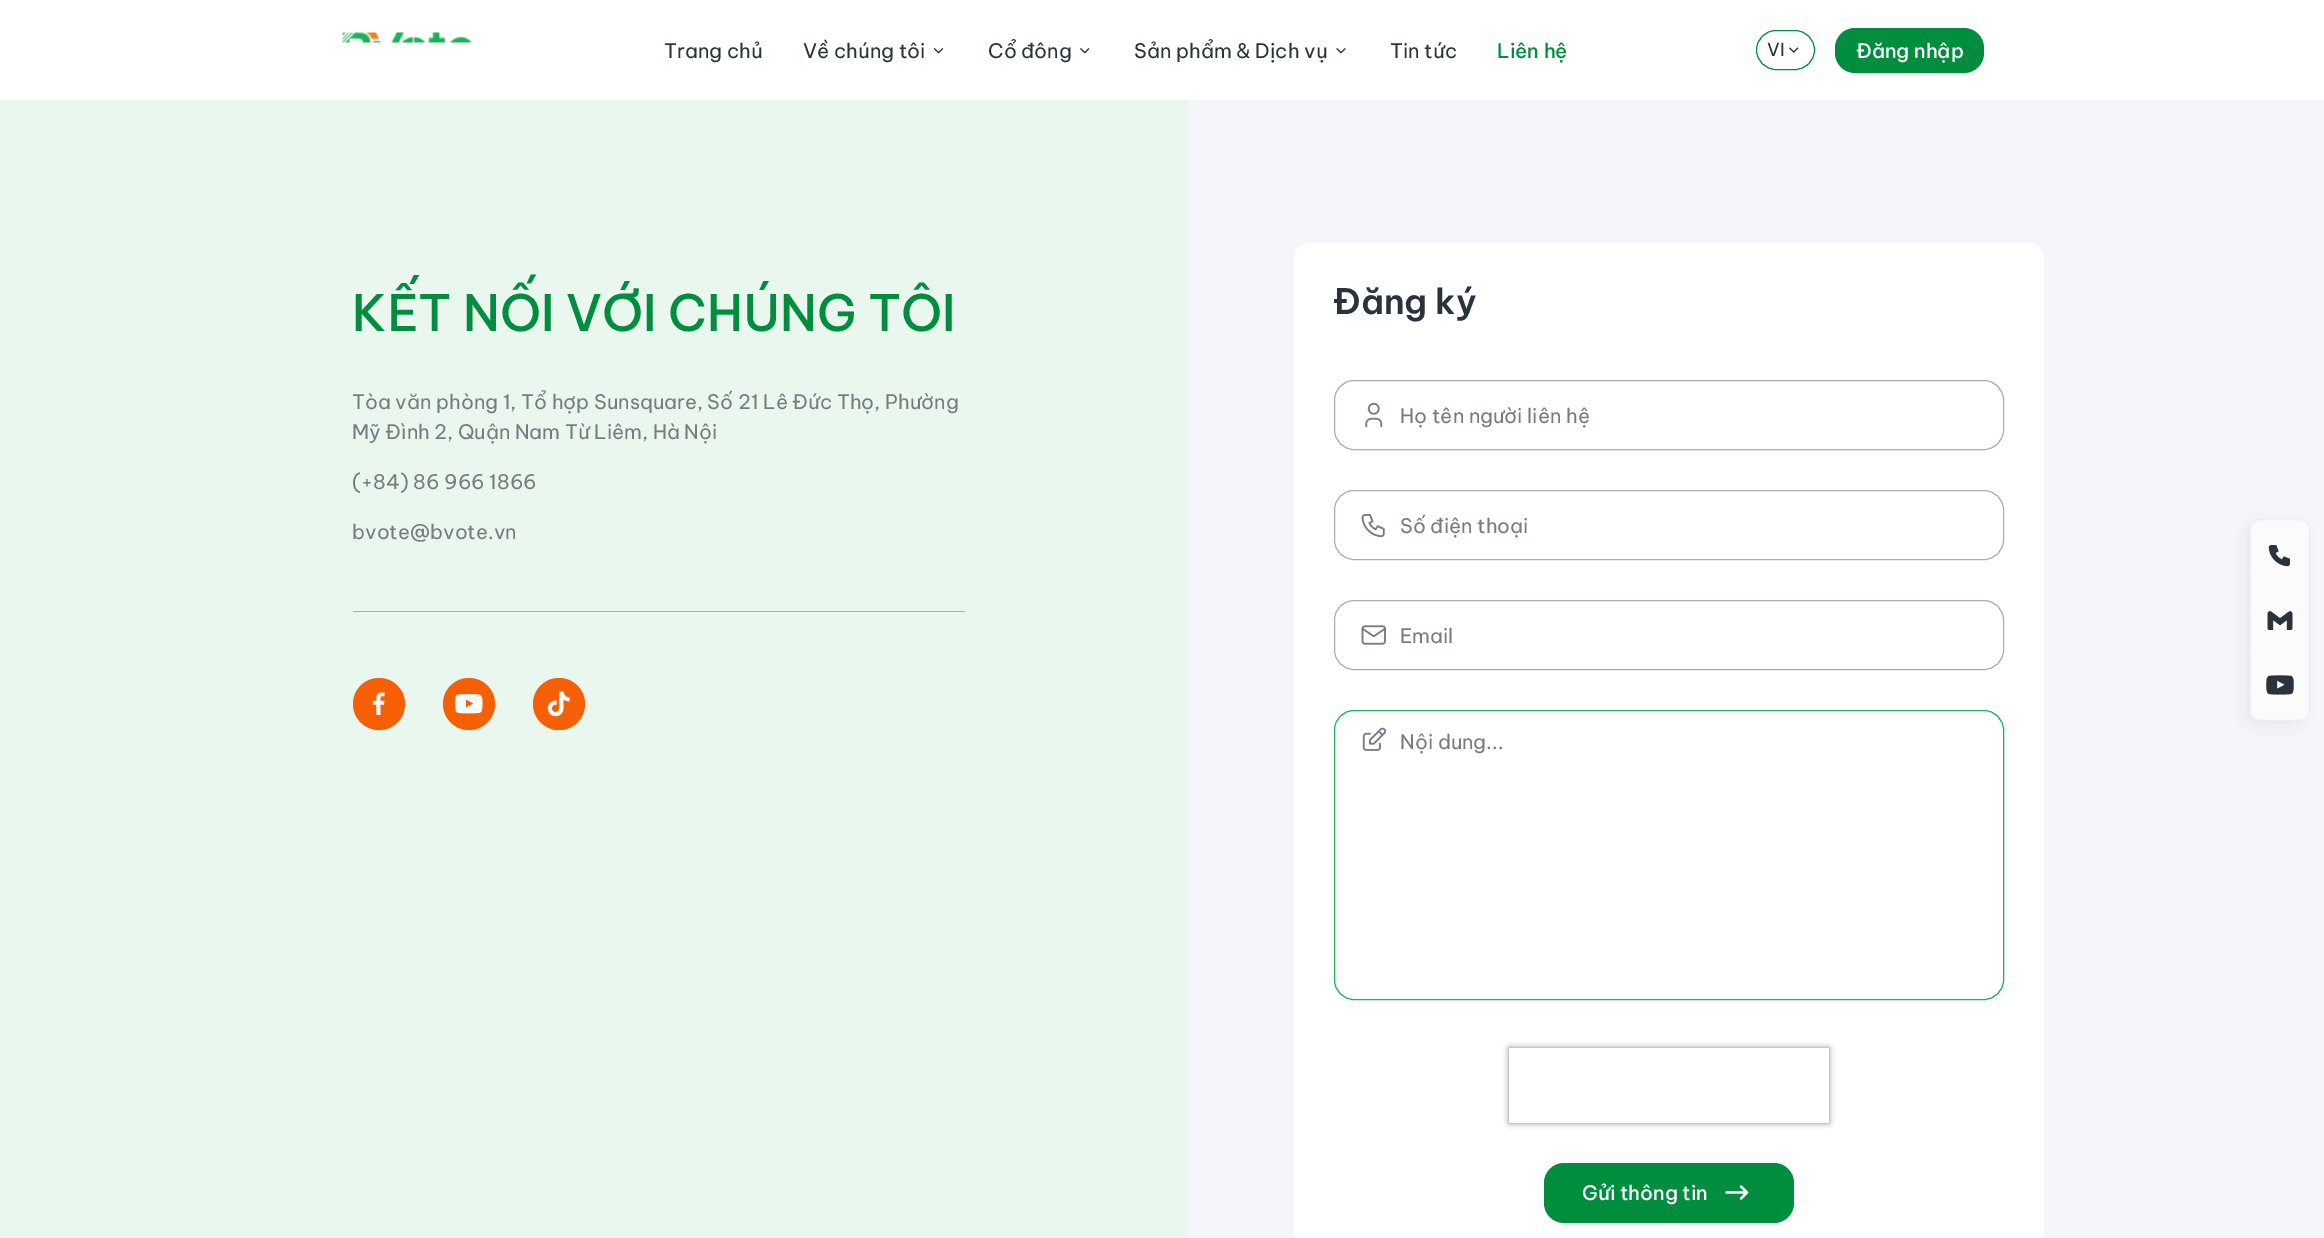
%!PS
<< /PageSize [2324 1238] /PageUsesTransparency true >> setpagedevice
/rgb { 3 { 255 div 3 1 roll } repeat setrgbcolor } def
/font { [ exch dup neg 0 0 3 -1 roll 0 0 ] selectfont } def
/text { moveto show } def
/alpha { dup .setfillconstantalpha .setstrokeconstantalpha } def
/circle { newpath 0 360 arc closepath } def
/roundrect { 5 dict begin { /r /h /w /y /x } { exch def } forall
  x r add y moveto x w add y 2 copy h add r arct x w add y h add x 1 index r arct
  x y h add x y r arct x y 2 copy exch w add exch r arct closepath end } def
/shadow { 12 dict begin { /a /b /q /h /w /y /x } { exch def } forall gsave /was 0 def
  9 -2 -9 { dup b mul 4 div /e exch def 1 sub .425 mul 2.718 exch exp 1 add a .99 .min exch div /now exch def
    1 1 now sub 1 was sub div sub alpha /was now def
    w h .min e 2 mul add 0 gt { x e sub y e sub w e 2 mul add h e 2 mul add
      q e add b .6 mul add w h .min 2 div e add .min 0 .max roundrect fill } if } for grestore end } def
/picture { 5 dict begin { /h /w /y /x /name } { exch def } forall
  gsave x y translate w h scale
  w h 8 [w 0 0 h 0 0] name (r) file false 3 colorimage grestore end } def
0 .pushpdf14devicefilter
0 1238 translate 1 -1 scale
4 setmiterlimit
245 245 250 rgb
0 0 2324 1238 rectfill
255 255 255 rgb
0 0 2324 100 rectfill
(img_01.rgb) 341 32 131 12 picture
(img_02.rgb) 933 48 11 6 picture
(img_03.rgb) 1080 48 10 6 picture
(img_04.rgb) 1336 48 10 6 picture
0 141 62 rgb
1756.5 30.5 58 39 19.5 roundrect stroke
(img_05.rgb) 1789 47 10 6 picture
0 142 62 rgb
1835 28 149 45 20 roundrect fill
234 247 238 rgb
0 100 1188 1138 rectfill
170 173 177 rgb
353 611 612 1 rectfill
246 95 4 rgb
379 704 26 circle fill
(img_06.rgb) 372 692 13 23 picture
469 704 26 circle fill
(img_07.rgb) 455 694 28 20 picture
559 704 26 circle fill
(img_08.rgb) 547 691 23 26 picture
255 255 255 rgb
1294 243 750 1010 15 roundrect fill
170 173 177 rgb
1334.5 380.5 669 69 19.5 roundrect stroke
(img_09.rgb) 1365 402 18 26 picture
1334.5 490.5 669 69 19.5 roundrect stroke
(img_10.rgb) 1361 514 24 24 picture
1334.5 600.5 669 69 19.5 roundrect stroke
(img_11.rgb) 1361 625 25 20 picture
24 178 91 rgb
1334.5 710.5 669 289 19.5 roundrect stroke
(img_12.rgb) 1362 727 25 24 picture
gsave
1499 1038 moveto 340 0 rlineto 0 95 rlineto -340 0 rlineto closepath 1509 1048 moveto 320 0 rlineto 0 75 rlineto -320 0 rlineto closepath eoclip newpath
128 128 128 rgb
1509 1048 320 75 0 3 1 shadow
grestore
0 142 62 rgb
1544 1163 250 60 20 roundrect fill
255 255 255 rgb
2.2 setlinewidth
1 setlinecap
1 setlinejoin
1726.5 1192.5 moveto 20.5 0 rlineto 1741 1198.5 moveto 6 -6 rlineto 1741 1186.5 moveto 6 6 rlineto stroke
201 201 201 rgb
2245 524 60 202 10 7.5 0.25 shadow
251 251 251 rgb
2250 519 60 202 10 roundrect fill
229 231 235 rgb
1.2 setlinewidth
0 setlinecap
0 setlinejoin
[1.25 1.25] 0 setdash
2260 519.5 moveto 40 0 rlineto 5 0 9.5 4 9.5 9.5 rcurveto 0 182 rlineto 0 5.5 -4.5 9.5 -9.5 9.5 rcurveto -40 0 rlineto -5 0 -9.5 -4 -9.5 -9.5 rcurveto 0 -182 rlineto 0 -5.5 4.5 -9.5 9.5 -9.5 rcurveto closepath stroke
(img_13.rgb) 2268 545 22 22 picture
(img_14.rgb) 2267 611 26 19 picture
(img_15.rgb) 2266 675 28 20 picture
/BeVietnamPro-Regular 20 font
41 51 59 rgb
(Trang chủ) 664 58 text
(Về chúng tôi) 803 58 text
(Cổ đông) 988 58 text
(Sản phẩm & Dịch vụ) 1134 58 text
(Tin tức) 1390 58 text
/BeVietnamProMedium-Medium 20 font
0 142 62 rgb
(Liên hệ) 1497 58 text
/BeVietnamPro-Regular 18 font
41 51 59 rgb
(VI) 1767 56 text
/BeVietnamProMedium-Medium 20 font
255 255 255 rgb
(Đăng nhập) 1856 58 text
/BeVietnamProMedium-Medium 50 font
0 142 62 rgb
(KẾT NỐI VỚI CHÚNG TÔI) 352 331 text
/BeVietnamPro-Regular 20 font
118 124 129 rgb
(Tòa văn phòng 1, Tổ hợp Sunsquare, Số 21 Lê Đức Thọ, Phường) 352 409 text
(Mỹ Đình 2, Quận Nam Từ Liêm, Hà Nội) 352 439 text
(\(+84\) 86 966 1866) 352 489 text
(bvote@bvote.vn) 352 539 text
/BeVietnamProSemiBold-SemiBold 35 font
41 51 59 rgb
(Đăng ký) 1333 314 text
/BeVietnamPro-Regular 20 font
118 124 129 rgb
(Họ tên người liên hệ) 1400 423 text
(Số điện thoại) 1400 533 text
(Email) 1400 643 text
(Nội dung...) 1400 749 text
/BeVietnamProMedium-Medium 20 font
255 255 255 rgb
(Gửi thông tin) 1582 1200 text
.poppdf14devicefilter showpage
